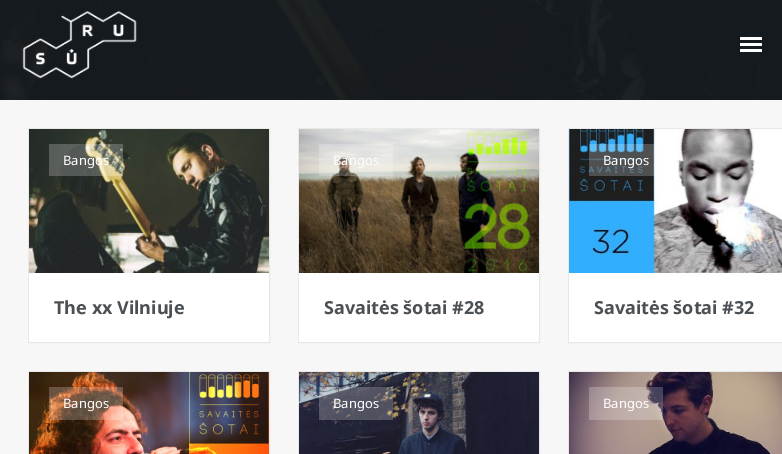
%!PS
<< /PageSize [782 454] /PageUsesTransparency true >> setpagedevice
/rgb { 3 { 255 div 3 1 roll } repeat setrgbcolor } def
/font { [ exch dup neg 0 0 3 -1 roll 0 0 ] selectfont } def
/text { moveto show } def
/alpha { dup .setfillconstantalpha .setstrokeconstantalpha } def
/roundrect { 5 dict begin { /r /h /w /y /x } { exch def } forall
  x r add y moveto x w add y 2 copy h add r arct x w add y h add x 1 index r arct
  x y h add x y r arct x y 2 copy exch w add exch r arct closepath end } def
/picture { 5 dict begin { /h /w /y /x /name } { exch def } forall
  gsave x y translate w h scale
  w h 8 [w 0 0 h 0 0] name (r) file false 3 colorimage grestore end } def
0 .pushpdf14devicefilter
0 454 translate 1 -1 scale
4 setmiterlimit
255 255 255 rgb
0 0 782 454 rectfill
(img_02.rgb) 0 0 782 100 picture
(img_01.rgb) 22 10 115 69 picture
740 37 22 3 1 roundrect fill
740 43 22 3 1 roundrect fill
740 49 22 3 1 roundrect fill
247 247 247 rgb
0 100 782 354 rectfill
232 232 232 rgb
28.5 128.5 241 214 rectstroke
255 255 255 rgb
29 273 240 69 rectfill
(img_03.rgb) 29 129 240 144 picture
0.22 alpha
49 144 74 32 rectfill
1 alpha
232 232 232 rgb
298.5 128.5 241 214 rectstroke
255 255 255 rgb
299 273 240 69 rectfill
(img_04.rgb) 299 129 240 144 picture
0.22 alpha
319 144 74 32 rectfill
1 alpha
232 232 232 rgb
568.5 128.5 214 214 rectstroke
255 255 255 rgb
569 273 213 69 rectfill
(img_05.rgb) 569 129 213 144 picture
0.22 alpha
589 144 66 32 rectfill
1 alpha
232 232 232 rgb
28.5 371.5 241 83 rectstroke
(img_06.rgb) 29 372 240 82 picture
0.22 alpha
255 255 255 rgb
49 387 74 33 rectfill
1 alpha
232 232 232 rgb
298.5 371.5 241 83 rectstroke
(img_07.rgb) 299 372 240 82 picture
0.22 alpha
255 255 255 rgb
319 387 74 33 rectfill
1 alpha
232 232 232 rgb
568.5 371.5 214 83 rectstroke
(img_08.rgb) 569 372 213 82 picture
0.22 alpha
255 255 255 rgb
589 387 74 33 rectfill
/NotoSans-Regular 13 font
1 alpha
(Bangos) 63 165 text
/NotoSans-Bold 18 font
75 80 85 rgb
(The xx Vilniuje) 54 314 text
/NotoSans-Regular 13 font
255 255 255 rgb
(Bangos) 333 165 text
/NotoSans-Bold 18 font
75 80 85 rgb
(Savaitės šotai #28) 324 314 text
/NotoSans-Regular 13 font
255 255 255 rgb
(Bangos) 603 165 text
/NotoSans-Bold 18 font
75 80 85 rgb
(Savaitės šotai #32) 594 314 text
/NotoSans-Regular 13 font
255 255 255 rgb
(Bangos) 63 408 text
(Bangos) 333 408 text
(Bangos) 603 408 text
.poppdf14devicefilter showpage
